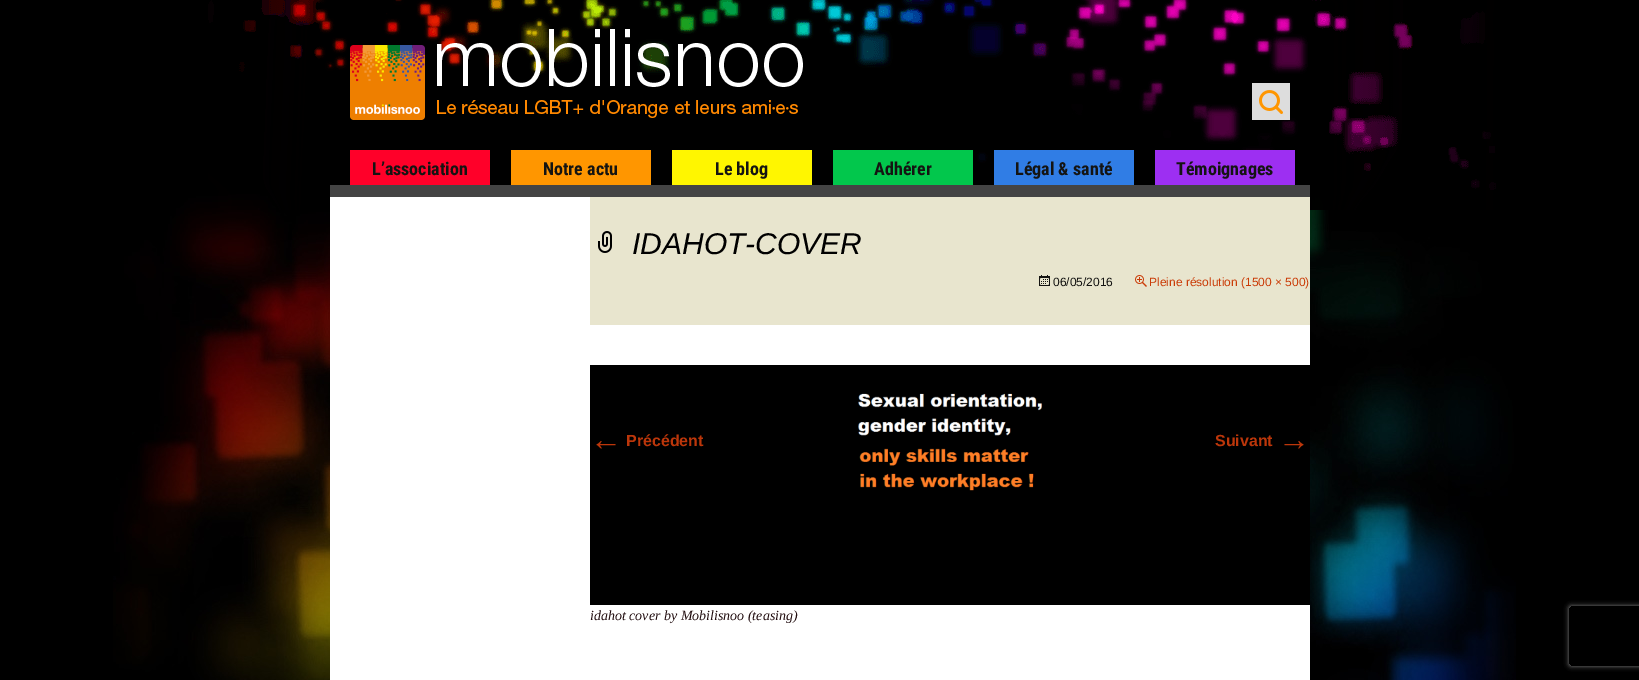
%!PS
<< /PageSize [1639 680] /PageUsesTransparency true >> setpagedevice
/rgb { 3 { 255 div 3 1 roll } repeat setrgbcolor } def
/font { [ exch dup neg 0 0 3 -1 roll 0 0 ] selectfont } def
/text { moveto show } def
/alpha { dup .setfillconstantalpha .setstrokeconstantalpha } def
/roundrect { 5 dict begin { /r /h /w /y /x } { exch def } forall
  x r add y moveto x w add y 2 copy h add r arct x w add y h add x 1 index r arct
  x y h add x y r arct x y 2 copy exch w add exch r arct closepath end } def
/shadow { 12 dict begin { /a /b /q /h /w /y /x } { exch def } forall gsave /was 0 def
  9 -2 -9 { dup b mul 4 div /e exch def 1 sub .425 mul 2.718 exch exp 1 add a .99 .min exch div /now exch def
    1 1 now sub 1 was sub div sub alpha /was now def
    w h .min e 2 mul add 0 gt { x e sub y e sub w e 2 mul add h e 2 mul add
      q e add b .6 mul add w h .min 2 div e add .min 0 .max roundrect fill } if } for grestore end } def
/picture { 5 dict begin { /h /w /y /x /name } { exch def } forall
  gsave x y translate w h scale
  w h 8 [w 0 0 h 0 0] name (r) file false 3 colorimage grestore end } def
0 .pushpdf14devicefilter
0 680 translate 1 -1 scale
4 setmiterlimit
0 0 0 rgb
0 0 1639 680 rectfill
(img_01.rgb) 113 161 1403 519 picture
(img_02.rgb) 208 0 1288 210 picture
(img_03.rgb) 350 29 453 91 picture
221 221 221 rgb
1252 83 38 37 rectfill
(img_04.rgb) 1259 90 24 24 picture
68 68 68 rgb
330 185 980 12 rectfill
255 0 41 rgb
350 150 140 35 rectfill
255 150 0 rgb
511 150 140 35 rectfill
255 246 0 rgb
672 150 140 35 rectfill
2 199 76 rgb
833 150 140 35 rectfill
48 125 229 rgb
994 150 140 35 rectfill
157 47 242 rgb
1155 150 140 35 rectfill
255 255 255 rgb
330 197 980 483 rectfill
232 229 206 rgb
590 197 720 128 rectfill
(img_05.rgb) 598 231 14 22 picture
(img_06.rgb) 1039 275 11 11 picture
(img_07.rgb) 1135 275 12 12 picture
(img_08.rgb) 590 365 720 240 picture
gsave
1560 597 moveto 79 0 rlineto 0 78 rlineto -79 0 rlineto closepath 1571 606 moveto 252 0 rlineto 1 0 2 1 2 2 rcurveto 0 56 rlineto 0 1 -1 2 -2 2 rcurveto -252 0 rlineto -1 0 -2 -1 -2 -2 rcurveto 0 -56 rlineto 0 -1 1 -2 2 -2 rcurveto closepath eoclip newpath
128 128 128 rgb
1569 606 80 60 2 2.5 1 shadow
grestore
/RobotoCondensed-Bold 18 font
20 20 18 rgb
(L’association) 372 175 text
(Notre actu) 543 175 text
(Le blog) 715 175 text
(Adhérer) 874 175 text
(Légal & santé) 1015 175 text
(Témoignages) 1176 175 text
/LiberationSans-Italic 30 font
0 0 0 rgb
(IDAHOT-COVER) 632 254 text
/LiberationSans-Regular 12 font
20 20 18 rgb
(06/05/2016) 1053 286 text
202 60 8 rgb
(Pleine résolution \(1500 × 500\)) 1149 286 text
/LiberationSans-Regular 32 font
188 54 10 rgb
(←) 590 450 text
/LiberationSans-Bold 16 font
(Précédent) 626 446 text
(Suivant) 1215 446 text
/LiberationSans-Regular 32 font
(→) 1278 450 text
/LiberationSerif-Italic 14 font
34 14 16 rgb
(idahot cover by Mobilisnoo \(teasing\)) 590 620 text
.poppdf14devicefilter showpage
